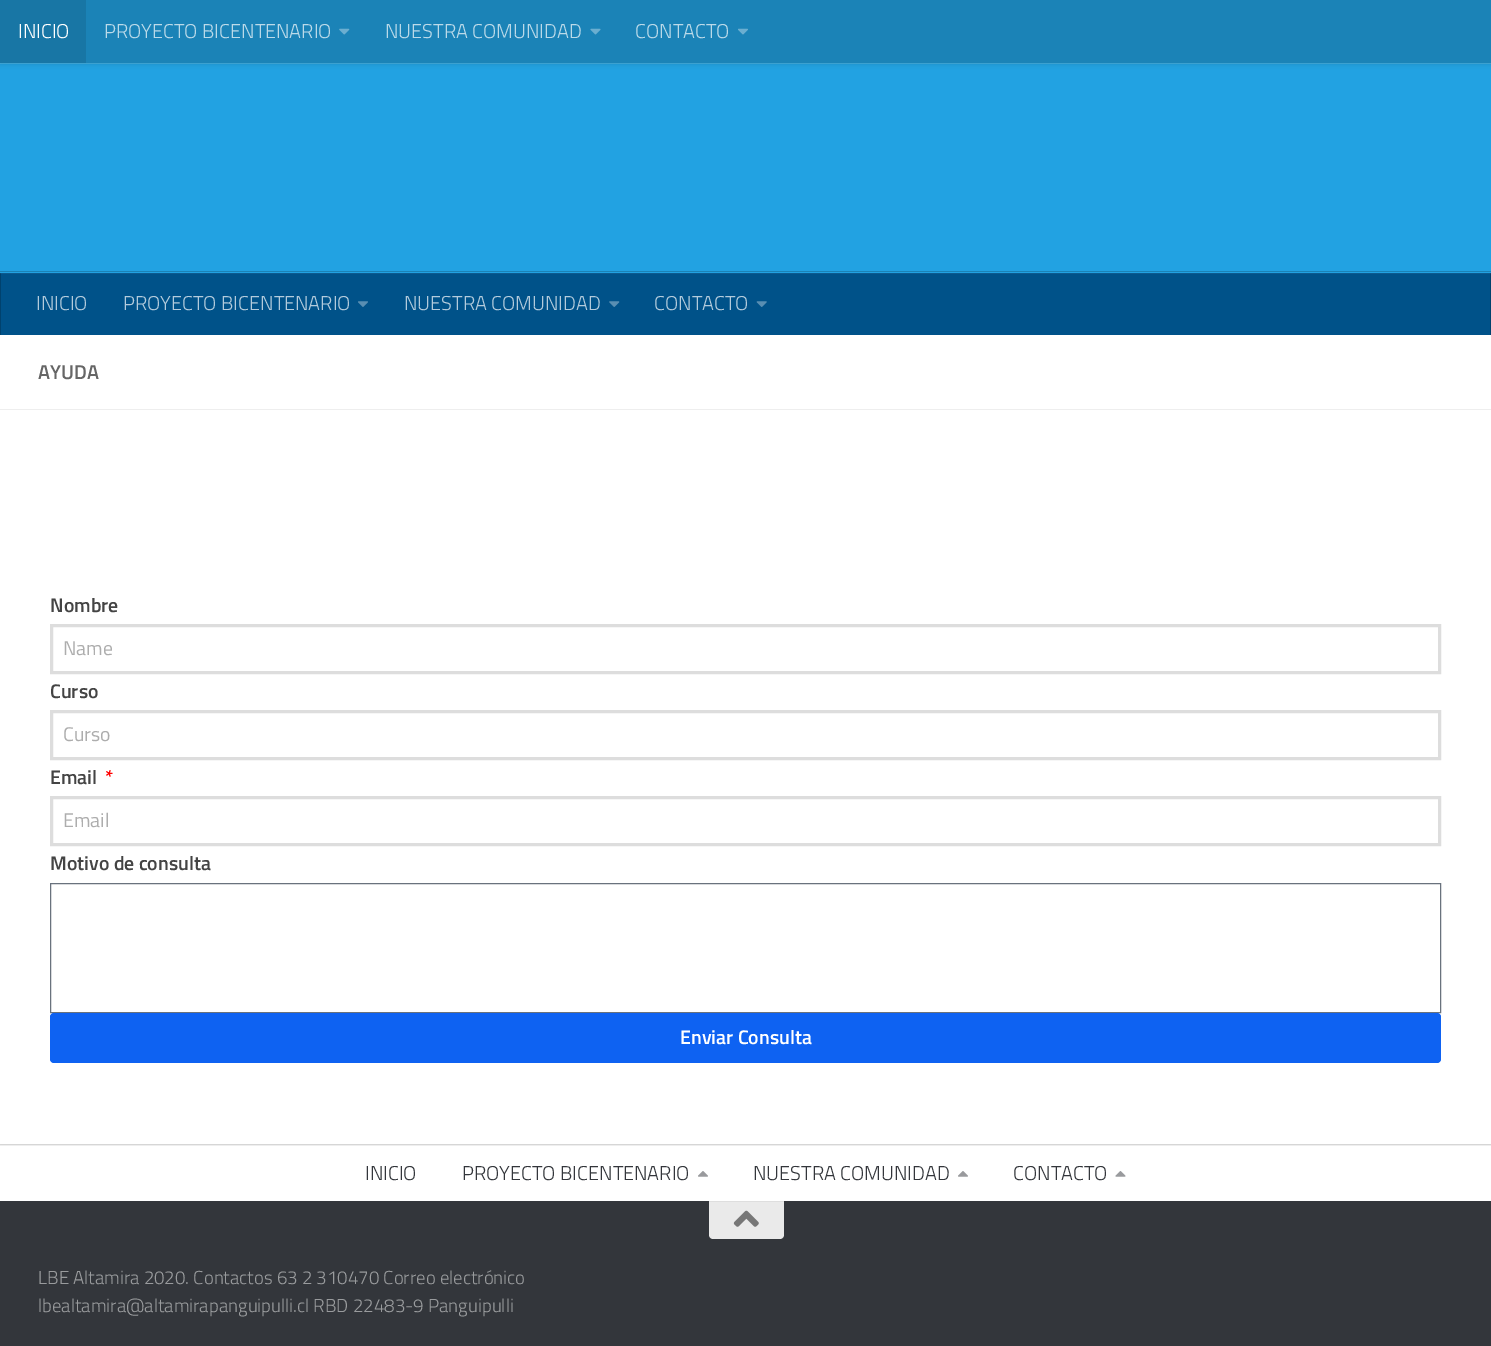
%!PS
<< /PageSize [1491 1346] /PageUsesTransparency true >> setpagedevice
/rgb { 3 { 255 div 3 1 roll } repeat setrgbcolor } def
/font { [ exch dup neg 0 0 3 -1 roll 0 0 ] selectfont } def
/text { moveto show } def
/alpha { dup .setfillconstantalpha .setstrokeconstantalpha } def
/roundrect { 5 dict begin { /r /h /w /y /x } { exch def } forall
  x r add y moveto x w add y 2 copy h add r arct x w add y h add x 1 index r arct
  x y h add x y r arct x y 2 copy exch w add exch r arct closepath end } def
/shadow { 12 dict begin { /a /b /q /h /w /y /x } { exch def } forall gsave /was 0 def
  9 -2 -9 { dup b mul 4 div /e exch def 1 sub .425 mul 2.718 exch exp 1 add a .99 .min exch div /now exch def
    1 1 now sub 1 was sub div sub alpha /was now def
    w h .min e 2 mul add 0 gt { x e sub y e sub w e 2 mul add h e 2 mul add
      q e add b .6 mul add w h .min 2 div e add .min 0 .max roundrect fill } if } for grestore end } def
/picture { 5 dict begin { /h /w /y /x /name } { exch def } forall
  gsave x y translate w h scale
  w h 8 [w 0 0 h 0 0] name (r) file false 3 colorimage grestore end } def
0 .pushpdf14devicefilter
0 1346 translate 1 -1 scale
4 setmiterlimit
234 234 234 rgb
0 0 1491 1346 rectfill
34 162 226 rgb
0 64 1491 209 rectfill
67 176 230 rgb
0 63 1491 1 rectfill
0 0 0 rgb
0 0 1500 63 0 3 0.2 shadow
27 131 183 rgb
86 0 1405 63 rectfill
24 118 165 rgb
0 0 86 63 rectfill
(img_01.rgb) 339 28 11 7 picture
(img_02.rgb) 590 28 11 7 picture
(img_03.rgb) 738 28 10 7 picture
27 130 181 rgb
0 271 1491 1 rectfill
0 0 0 rgb
0 336 1491 809 0 0.5 0.1 shadow
0 82 137 rgb
1 274 1489 61 rectfill
13 91 143 rgb
0 273 1491 1 rectfill
0 66 110 rgb
1490 273 1 62 rectfill
13 75 117 rgb
1490 273 1 1 rectfill
0 66 110 rgb
0 273 1 62 rectfill
13 75 117 rgb
0 273 1 1 rectfill
(img_04.rgb) 358 301 10 6 picture
(img_05.rgb) 609 301 11 6 picture
(img_06.rgb) 756 301 11 6 picture
255 255 255 rgb
0 335 1491 809 rectfill
238 238 238 rgb
0 409 1491 1 rectfill
221 221 221 rgb
3 setlinewidth
51.5 625.5 1388 47 rectstroke
51.5 711.5 1388 47 rectstroke
51.5 797.5 1388 47 rectstroke
105 114 125 rgb
1 setlinewidth
50.5 883.5 1390 129 rectstroke
14 98 242 rgb
50 1013 1391 50 4 roundrect fill
255 255 255 rgb
0 1146 1491 55 rectfill
238 238 238 rgb
0 1145 1491 1 rectfill
(img_07.rgb) 698 1171 10 6 picture
(img_07.rgb) 958 1171 10 6 picture
(img_08.rgb) 1115 1171 11 6 picture
51 54 59 rgb
0 1201 1491 145 rectfill
234 234 234 rgb
709 1201 moveto 75 0 rlineto 0 34 rlineto 0 2 -2 4 -4 4 rcurveto -67 0 rlineto -2 0 -4 -2 -4 -4 rcurveto closepath fill
222 222 222 rgb
709 1201 75 1 rectfill
(img_09.rgb) 733 1210 26 17 picture
/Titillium-Light 20 font
255 255 255 rgb
(INICIO) 18 38 text
187 218 233 rgb
(PROYECTO BICENTENARIO) 104 38 text
(NUESTRA COMUNIDAD) 385 38 text
(CONTACTO) 635 38 text
179 203 220 rgb
(INICIO) 36 310 text
(PROYECTO BICENTENARIO) 123 310 text
(NUESTRA COMUNIDAD) 404 310 text
(CONTACTO) 654 310 text
/Titillium-SemiBold 20 font
102 102 102 rgb
(AYUDA) 38 379 text
/Titillium-SemiBold 19.75 font
68 68 68 rgb
(Nombre) 50 612 text
/Titillium-Regular 19.75 font
173 173 173 rgb
(Name) 63 655 text
/Titillium-SemiBold 19.75 font
68 68 68 rgb
(Curso) 50 698 text
/Titillium-Regular 19.75 font
173 173 173 rgb
(Curso) 63 741 text
/Titillium-SemiBold 19.75 font
68 68 68 rgb
(Email) 50 784 text
255 0 0 rgb
(*) 105 784 text
/Titillium-Regular 19.75 font
173 173 173 rgb
(Email) 63 827 text
/Titillium-SemiBold 19.75 font
68 68 68 rgb
(Motivo de consulta) 50 870 text
255 255 255 rgb
(Enviar Consulta) 680 1044 text
/Titillium-Light 20 font
51 54 59 rgb
(INICIO) 365 1180 text
(PROYECTO BICENTENARIO) 462 1180 text
(NUESTRA COMUNIDAD) 753 1180 text
(CONTACTO) 1013 1180 text
/Titillium-Light 18.75 font
153 155 157 rgb
(LBE Altamira 2020. Contactos 63 2 310470 Correo electrónico) 38 1284 text
(lbealtamira@altamirapanguipulli.cl RBD 22483-9 Panguipulli) 38 1312 text
.poppdf14devicefilter showpage
